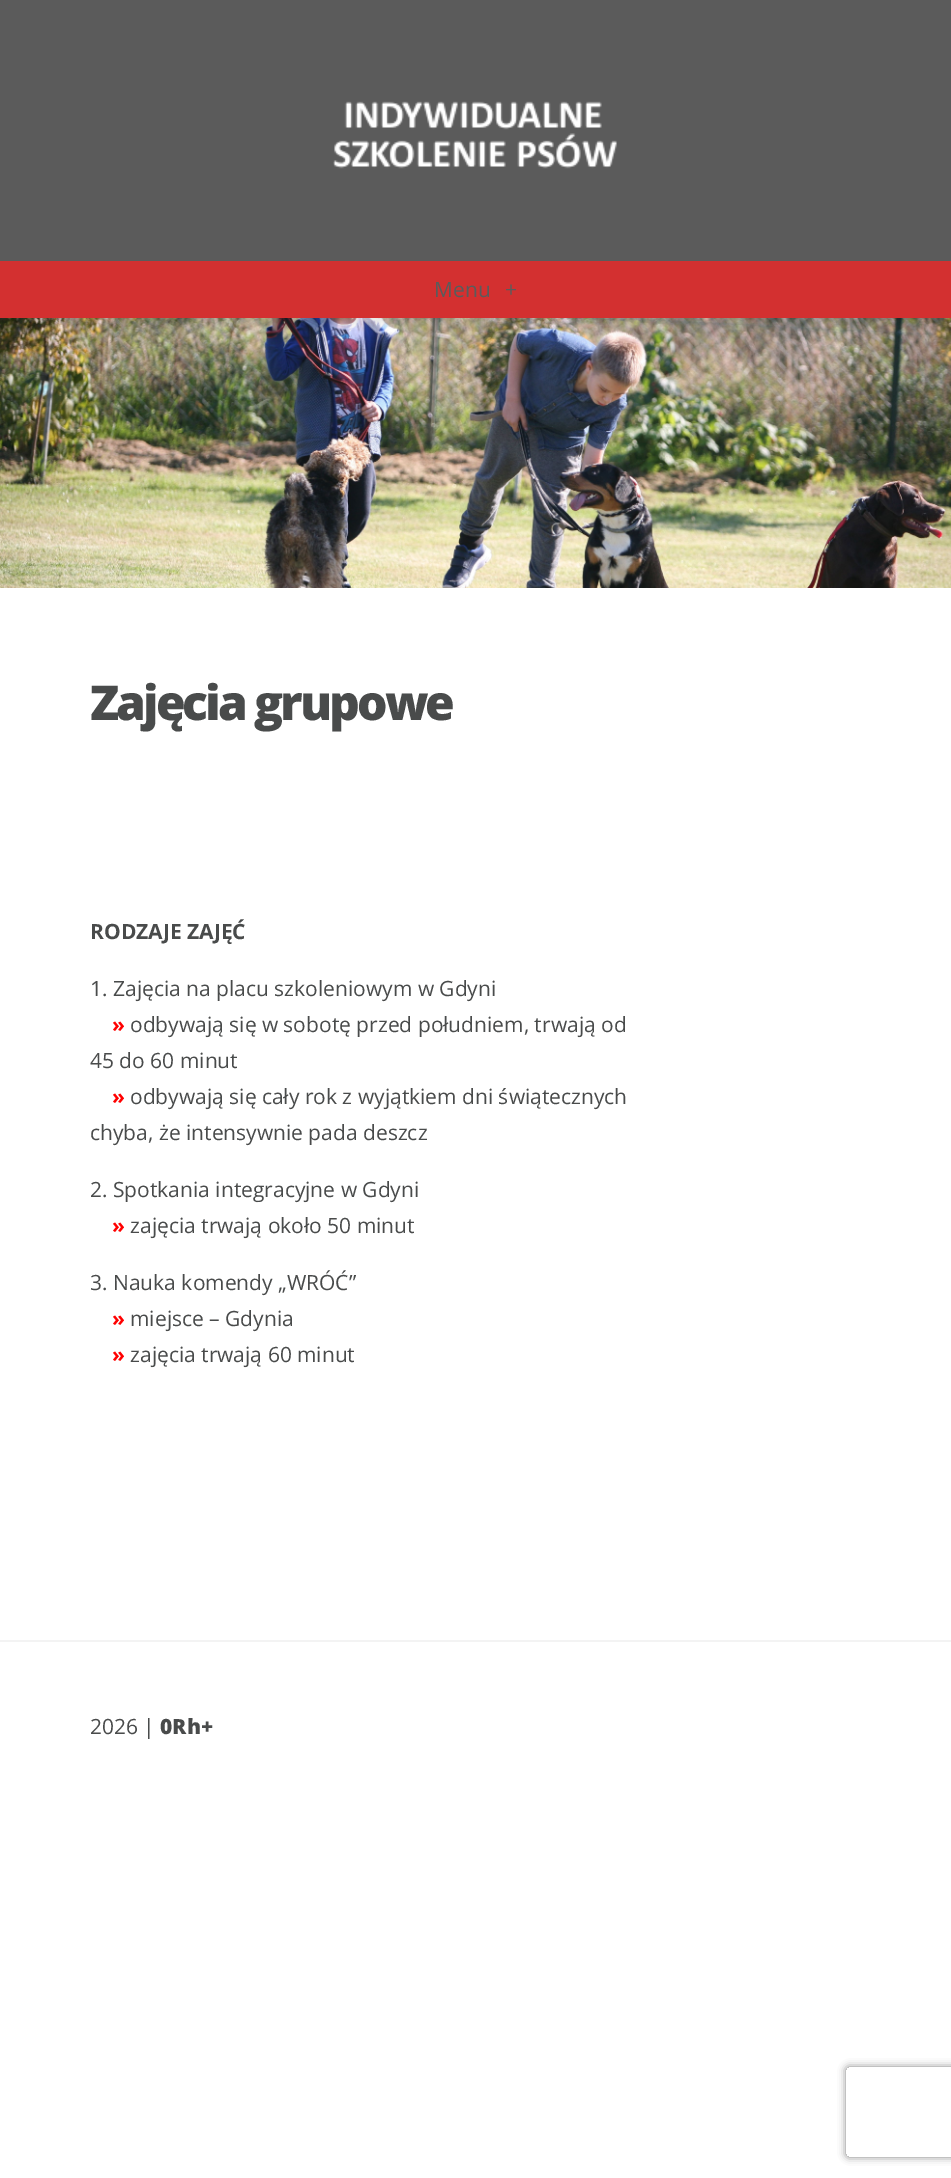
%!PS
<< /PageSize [951 2178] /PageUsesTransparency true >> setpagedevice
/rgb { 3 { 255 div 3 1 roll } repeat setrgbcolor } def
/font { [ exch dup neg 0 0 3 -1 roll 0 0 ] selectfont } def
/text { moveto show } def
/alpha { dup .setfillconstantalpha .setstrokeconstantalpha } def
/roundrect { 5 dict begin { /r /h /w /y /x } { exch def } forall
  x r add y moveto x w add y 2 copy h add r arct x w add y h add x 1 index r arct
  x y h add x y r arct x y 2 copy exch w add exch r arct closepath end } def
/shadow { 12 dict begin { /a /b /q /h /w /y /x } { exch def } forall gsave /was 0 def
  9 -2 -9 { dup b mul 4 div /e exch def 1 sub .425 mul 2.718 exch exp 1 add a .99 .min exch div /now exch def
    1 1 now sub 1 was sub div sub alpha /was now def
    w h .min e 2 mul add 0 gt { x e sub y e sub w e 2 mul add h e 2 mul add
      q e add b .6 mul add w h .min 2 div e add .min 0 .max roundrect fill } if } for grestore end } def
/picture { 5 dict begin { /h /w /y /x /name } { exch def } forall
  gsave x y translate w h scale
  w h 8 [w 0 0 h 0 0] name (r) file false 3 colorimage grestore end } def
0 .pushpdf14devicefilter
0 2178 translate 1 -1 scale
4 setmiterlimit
255 255 255 rgb
0 0 951 2178 rectfill
(img_02.rgb) 0 318 951 270 picture
0 0 0 rgb
0 6 951 318 0 3 0.08 shadow
91 91 91 rgb
0 0 951 261 rectfill
(img_01.rgb) 333 101 284 68 picture
211 48 48 rgb
0 261 951 57 rectfill
243 243 243 rgb
0 1640 951 2 rectfill
gsave
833 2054 moveto 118 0 rlineto 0 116 rlineto -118 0 rlineto closepath 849 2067 moveto 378 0 rlineto 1.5 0 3 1.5 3 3 rcurveto 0 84 rlineto 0 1.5 -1.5 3 -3 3 rcurveto -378 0 rlineto -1.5 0 -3 -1.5 -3 -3 rcurveto 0 -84 rlineto 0 -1.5 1.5 -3 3 -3 rcurveto closepath eoclip newpath
128 128 128 rgb
846 2067 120 90 3 4 1 shadow
grestore
/OpenSans-Regular 21 font
91 91 91 rgb
(Menu) 434 297 text
(+) 505 297 text
/OpenSans-ExtraBold 48 font
73 75 75 rgb
90 720 moveto -3 0 (Zajęcia grupowe) ashow
/OpenSans-Bold 21 font
(RODZAJE ZAJĘĆ) 90 939 text
/OpenSans-Regular 21 font
(1. Zajęcia na placu szkoleniowym w Gdyni) 90 996 text
/OpenSans-Bold 21 font
255 0 0 rgb
(») 112 1032 text
/OpenSans-Regular 21 font
73 75 75 rgb
(odbywają się w sobotę przed południem, trwają od) 130 1032 text
(45 do 60 minut) 90 1068 text
/OpenSans-Bold 21 font
255 0 0 rgb
(») 112 1104 text
/OpenSans-Regular 21 font
73 75 75 rgb
(odbywają się cały rok z wyjątkiem dni świątecznych) 130 1104 text
(chyba, że intensywnie pada deszcz) 90 1140 text
(2. Spotkania integracyjne w Gdyni) 90 1197 text
/OpenSans-Bold 21 font
255 0 0 rgb
(») 112 1233 text
/OpenSans-Regular 21 font
73 75 75 rgb
(zajęcia trwają około 50 minut) 130 1233 text
(3. Nauka komendy „WRÓĆ”) 90 1290 text
/OpenSans-Bold 21 font
255 0 0 rgb
(») 112 1326 text
/OpenSans-Regular 21 font
73 75 75 rgb
(miejsce – Gdynia) 130 1326 text
/OpenSans-Bold 21 font
255 0 0 rgb
(») 112 1362 text
/OpenSans-Regular 21 font
73 75 75 rgb
(zajęcia trwają 60 minut) 130 1362 text
(2026 |) 90 1734 text
/OpenSans-ExtraBold 21 font
(0Rh+) 160 1734 text
.poppdf14devicefilter showpage
